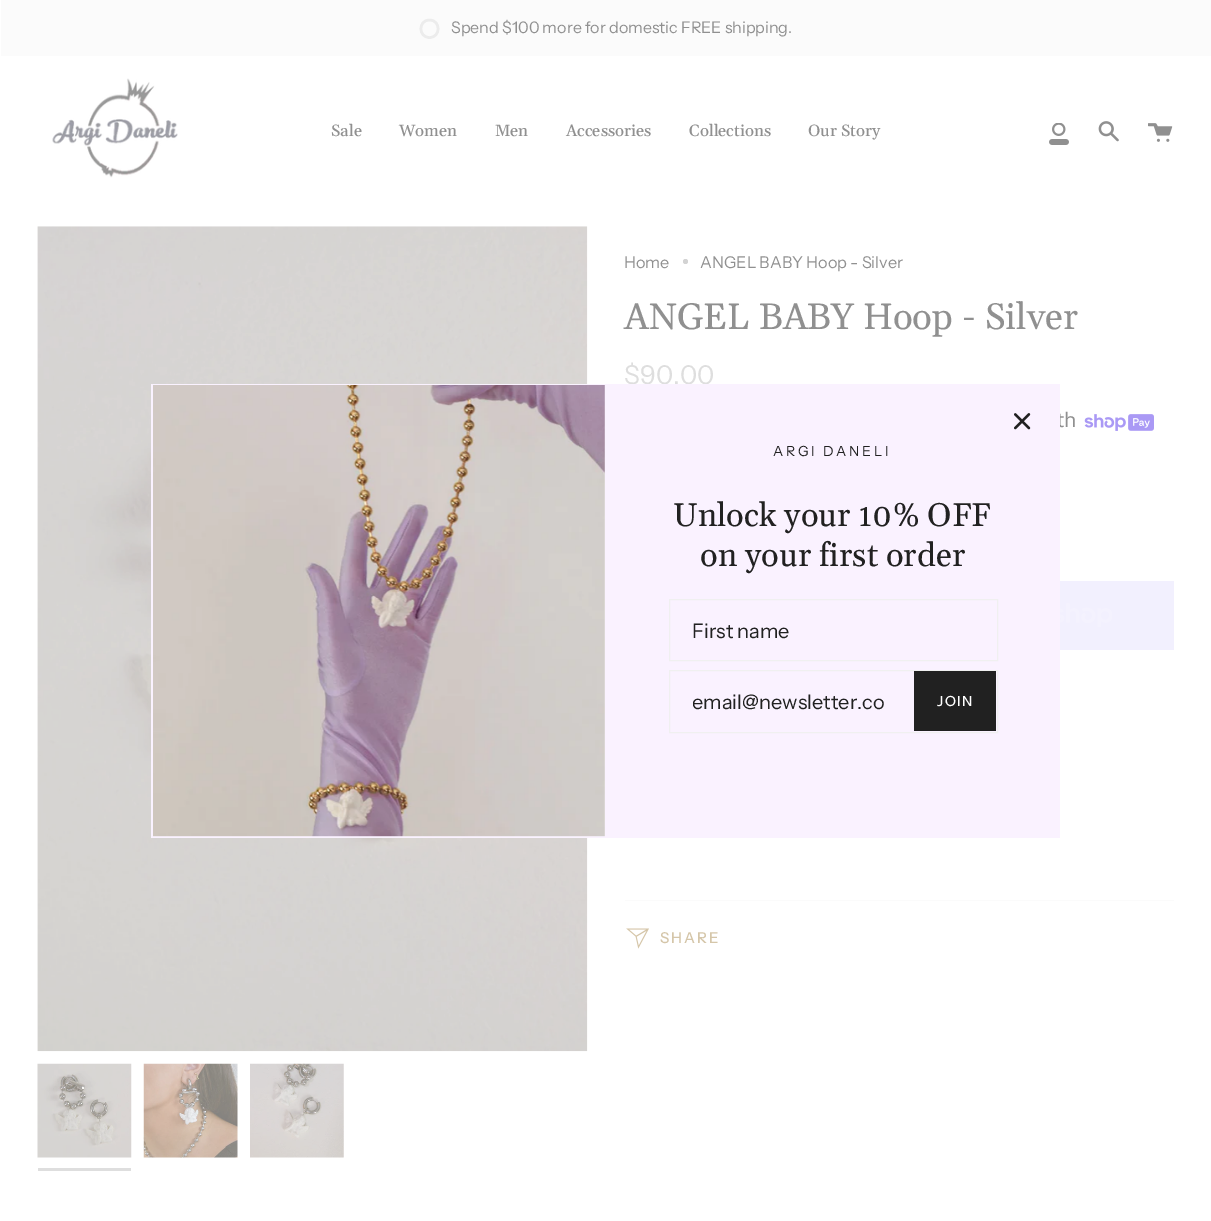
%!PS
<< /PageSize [1211 1221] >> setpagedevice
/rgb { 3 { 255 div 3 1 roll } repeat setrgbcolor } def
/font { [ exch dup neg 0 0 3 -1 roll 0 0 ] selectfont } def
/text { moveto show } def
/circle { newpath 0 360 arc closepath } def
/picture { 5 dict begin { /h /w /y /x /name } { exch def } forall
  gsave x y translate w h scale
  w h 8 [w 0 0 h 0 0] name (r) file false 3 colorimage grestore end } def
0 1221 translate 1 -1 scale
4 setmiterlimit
255 255 255 rgb
0 0 1211 1221 rectfill
251 251 251 rgb
1 0 1210 56 rectfill
236 236 236 rgb
2.5 setlinewidth
429.5 20 moveto -11.5 0 -11.5 17.5 0 17.5 rcurveto 11.5 0 11.5 -17.5 0 -17.5 rcurveto closepath stroke
(img_01.rgb) 52 78 126 100 picture
(img_02.rgb) 1049 123 20 22 picture
(img_03.rgb) 1098 121 21 21 picture
(img_04.rgb) 1148 123 25 19 picture
(img_05.rgb) 37 226 551 826 picture
(img_06.rgb) 37 1063 95 95 picture
222 222 222 rgb
38 1168 93 3 rectfill
(img_07.rgb) 143 1063 95 95 picture
(img_08.rgb) 250 1063 94 95 picture
211 211 211 rgb
685.5 261.5 2.5 circle fill
(img_09.rgb) 1084 414 70 17 picture
242 240 254 rgb
1060 581 114 69 rectfill
(img_10.rgb) 1060 603 52 24 picture
251 251 251 rgb
625 900 549 1 rectfill
(img_11.rgb) 626 928 23 21 picture
/InstrumentSans-Regular 16 font
144 144 144 rgb
(Spend $100 more for domestic FREE shipping.) 451 33 text
/Gelasio-Medium 16.25 font
(Sale) 331 136 text
(Women) 399 136 text
(Men) 495 136 text
(Accessories) 566 136 text
(Collections) 689 136 text
(Our Story) 808 136 text
/InstrumentSans-Regular 16.25 font
(Home) 624 268 text
(ANGEL BABY Hoop - Silver) 700 268 text
/Gelasio-Regular 36.75 font
(ANGEL BABY Hoop - Silver) 624 329 text
/InstrumentSans-Regular 26 font
222 222 222 rgb
($90.00) 624 384 text
/NotoSans-Regular 20 font
144 144 144 rgb
(th) 1057 427 text
/InstrumentSans-Medium 15 font
213 198 169 rgb
660 943 moveto 2 0 (SHARE) ashow
250 242 255 rgb
151 384 909 454 rectfill
(img_12.rgb) 1014 413 17 17 picture
(img_13.rgb) 153 385 452 452 picture
/InstrumentSans-Regular 14 font
33 33 33 rgb
773 456 moveto 2.75 0 (ARGI DANELI) ashow
/Gelasio-Regular 32.75 font
(Unlock your 10% OFF) 673 526 text
(on your first order) 700 566 text
240 240 240 rgb
1 setlinewidth
669.5 599.5 328 61 rectstroke
/InstrumentSans-Regular 20 font
33 33 33 rgb
(First name) 692 638 text
240 240 240 rgb
669.5 670.5 328 62 rectstroke
gsave
693 689 198 25 rectclip
33 33 33 rgb
(email@newsletter.co) 692 709 text
grestore
33 33 33 rgb
914 671 82 60 rectfill
/InstrumentSans-Medium 14 font
255 255 255 rgb
937 706 moveto 1.5 0 (JOIN) ashow
showpage
